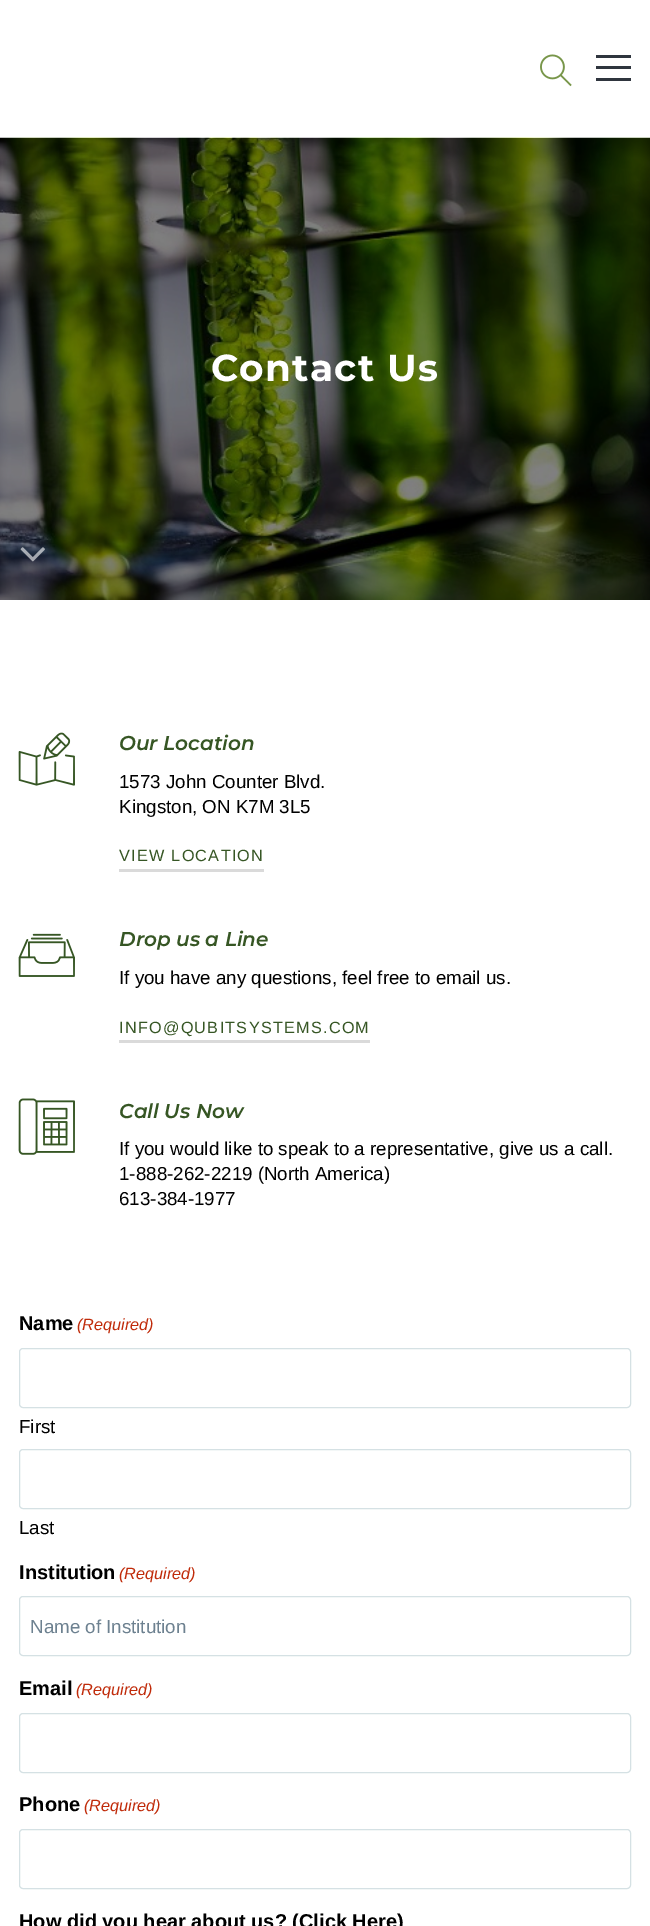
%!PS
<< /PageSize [650 1926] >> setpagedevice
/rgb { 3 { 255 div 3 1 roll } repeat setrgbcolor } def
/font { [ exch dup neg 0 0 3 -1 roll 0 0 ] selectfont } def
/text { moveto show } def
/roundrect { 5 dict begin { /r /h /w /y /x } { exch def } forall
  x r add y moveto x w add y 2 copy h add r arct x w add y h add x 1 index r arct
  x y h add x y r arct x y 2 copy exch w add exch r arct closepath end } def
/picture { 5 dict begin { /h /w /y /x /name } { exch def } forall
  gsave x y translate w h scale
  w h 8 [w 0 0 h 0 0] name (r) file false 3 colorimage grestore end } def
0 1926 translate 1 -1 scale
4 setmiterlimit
255 255 255 rgb
0 0 650 1926 rectfill
(img_01.rgb) 540 54 32 33 picture
47 53 62 rgb
596 66 35 3 rectfill
596 55 35 3 rectfill
596 78 35 3 rectfill
(img_02.rgb) 0 137 650 463 picture
(img_03.rgb) 20 547 25 15 picture
(img_04.rgb) 18 732 57 54 picture
218 218 218 rgb
119 869 145 3 rectfill
(img_05.rgb) 18 933 57 44 picture
119 1040 251 3 rectfill
(img_06.rgb) 18 1098 57 57 picture
213 225 228 rgb
19.5 1348.5 611 59 3.5 roundrect stroke
19.5 1449.5 611 59 3.5 roundrect stroke
19.5 1596.5 611 59 3.5 roundrect stroke
19.5 1713.5 611 59 3.5 roundrect stroke
19.5 1829.5 611 59 3.5 roundrect stroke
/Montserrat-Bold 37.5 font
255 255 255 rgb
211 381 moveto 1.25 0 (Contact Us) ashow
/Montserrat-SemiBoldItalic 20 font
54 86 36 rgb
(Our Location) 119 750 text
/LiberationSans-Regular 18.75 font
0 0 0 rgb
(1573 John Counter Blvd.) 119 788 text
(Kingston, ON K7M 3L5) 119 813 text
/LiberationSans-Regular 16.25 font
54 86 36 rgb
119 861 moveto 1.25 0 (VIEW LOCATION) ashow
/Montserrat-SemiBoldItalic 20 font
(Drop us a Line) 119 946 text
/LiberationSans-Regular 18.75 font
0 0 0 rgb
(If you have any questions, feel free to email us.) 119 984 text
/LiberationSans-Regular 16.25 font
54 86 36 rgb
119 1033 moveto 1.25 0 (INFO@QUBITSYSTEMS.COM) ashow
/Montserrat-SemiBoldItalic 20 font
(Call Us Now) 119 1118 text
/LiberationSans-Regular 18.75 font
0 0 0 rgb
(If you would like to speak to a representative, give us a call.) 119 1155 text
(1-888-262-2219 \(North America\)) 119 1180 text
(613-384-1977) 119 1205 text
/LiberationSans-Bold 20 font
(Name) 19 1330 text
/LiberationSans-Italic 16.25 font
192 43 10 rgb
(\(Required\)) 77 1330 text
/LiberationSans-Regular 18.75 font
0 0 0 rgb
(First) 19 1433 text
(Last) 19 1534 text
/LiberationSans-Bold 20 font
(Institution) 19 1579 text
/LiberationSans-Italic 16.25 font
192 43 10 rgb
(\(Required\)) 119 1579 text
/LiberationSans-Regular 18.75 font
109 129 144 rgb
(Name of Institution) 30 1633 text
/LiberationSans-Bold 20 font
0 0 0 rgb
(Email) 19 1695 text
/LiberationSans-Italic 16.25 font
192 43 10 rgb
(\(Required\)) 76 1695 text
/LiberationSans-Bold 20 font
0 0 0 rgb
(Phone) 19 1811 text
/LiberationSans-Italic 16.25 font
192 43 10 rgb
(\(Required\)) 84 1811 text
/LiberationSans-Bold 20 font
0 0 0 rgb
(How did you hear about us? \(Click Here\)) 19 1928 text
showpage
